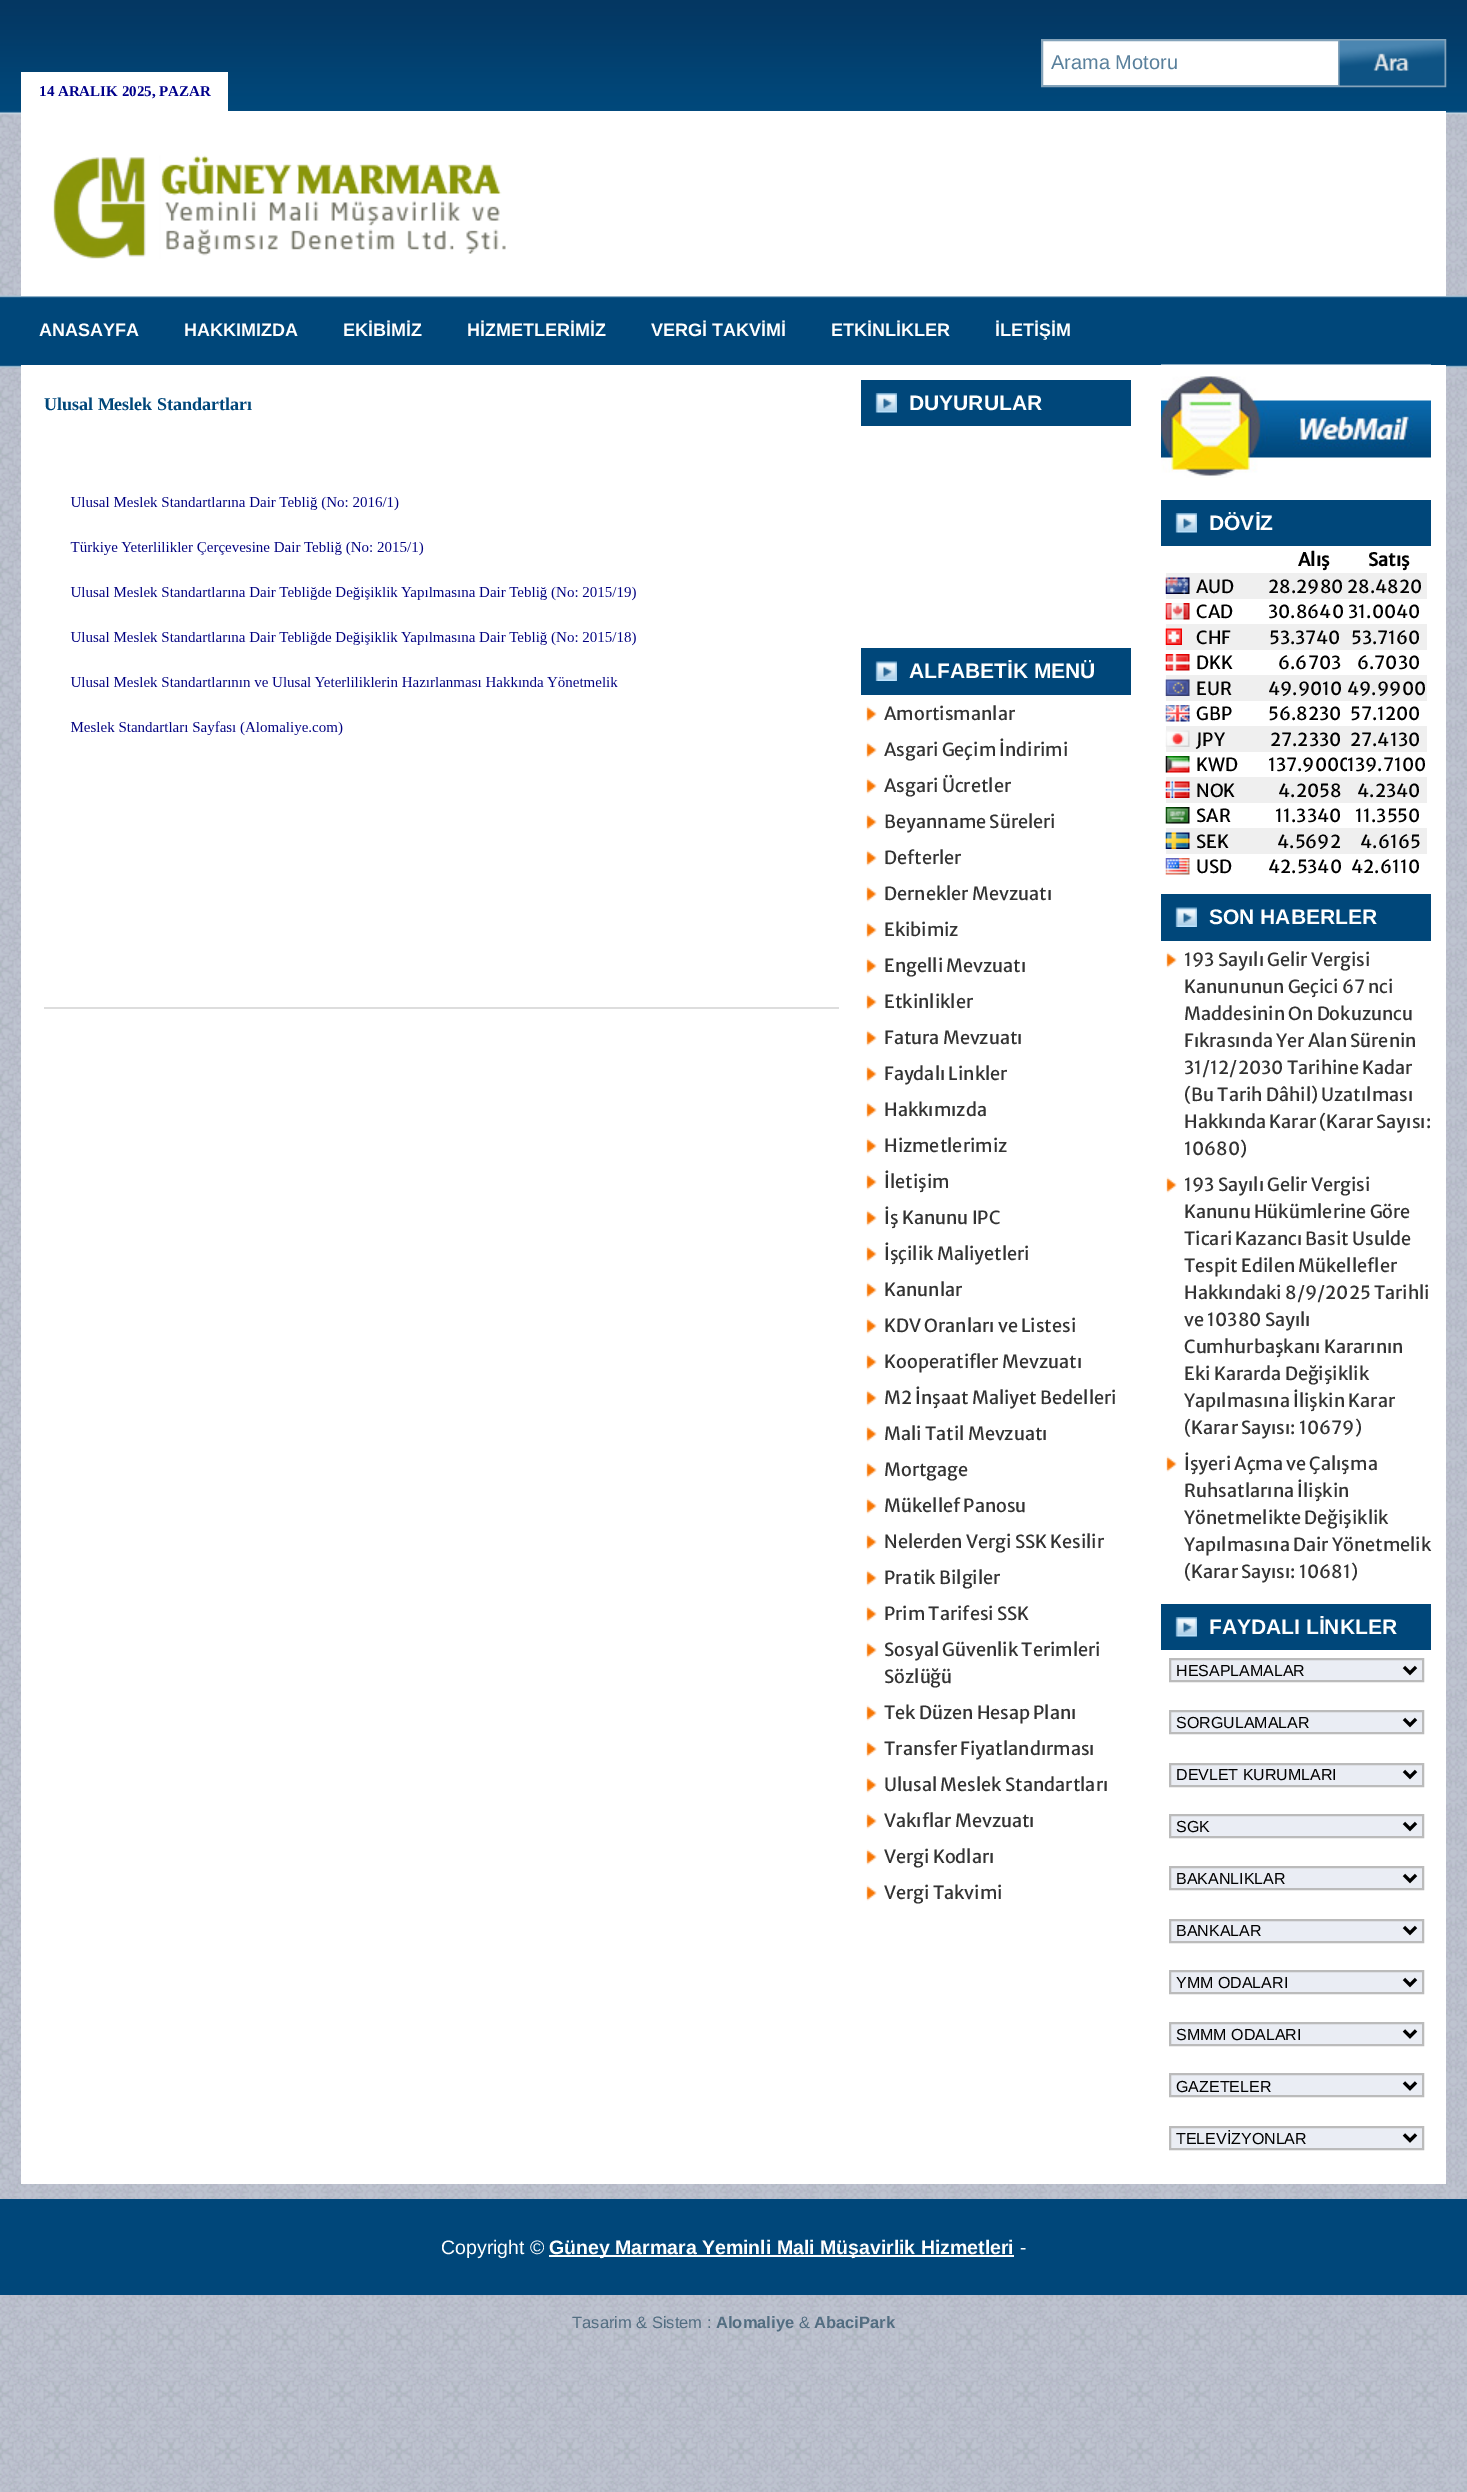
%!PS
<< /PageSize [1467 2492] >> setpagedevice
/rgb { 3 { 255 div 3 1 roll } repeat setrgbcolor } def
/font { [ exch dup neg 0 0 3 -1 roll 0 0 ] selectfont } def
/text { moveto show } def
/picture { 5 dict begin { /h /w /y /x /name } { exch def } forall
  gsave x y translate w h scale
  w h 8 [w 0 0 h 0 0] name (r) file false 3 colorimage grestore end } def
0 2492 translate 1 -1 scale
4 setmiterlimit
255 255 255 rgb
0 0 1467 2492 rectfill
(img_01.rgb) 0 113 1467 2379 picture
(img_02.rgb) 0 0 1467 368 picture
1043 41 295 44 rectfill
132 163 186 rgb
2 setlinewidth
1042 40 403 46 rectstroke
(img_03.rgb) 1338 40 107 46 picture
255 255 255 rgb
21 72 207 39 rectfill
21 111 1425 185 rectfill
(img_04.rgb) 53 155 453 104 picture
21 365 1425 1819 rectfill
221 221 221 rgb
44 1007 795 2 rectfill
(img_05.rgb) 70 496 566 240 picture
0 71 122 rgb
861 380 270 46 rectfill
(img_06.rgb) 875 393 22 20 picture
861 648 270 47 rectfill
(img_07.rgb) 875 661 22 20 picture
(img_08.rgb) 866 706 11 16 picture
(img_08.rgb) 866 742 11 16 picture
(img_08.rgb) 866 778 11 16 picture
(img_08.rgb) 866 814 11 16 picture
(img_08.rgb) 866 850 11 16 picture
(img_08.rgb) 866 886 11 16 picture
(img_08.rgb) 866 922 11 16 picture
(img_08.rgb) 866 958 11 16 picture
(img_08.rgb) 866 994 11 16 picture
(img_08.rgb) 866 1030 11 16 picture
(img_08.rgb) 866 1066 11 16 picture
(img_08.rgb) 866 1102 11 16 picture
(img_08.rgb) 866 1138 11 16 picture
(img_08.rgb) 866 1174 11 16 picture
(img_08.rgb) 866 1210 11 16 picture
(img_08.rgb) 866 1246 11 16 picture
(img_08.rgb) 866 1282 11 16 picture
(img_08.rgb) 866 1318 11 16 picture
(img_08.rgb) 866 1354 11 16 picture
(img_08.rgb) 866 1390 11 16 picture
(img_08.rgb) 866 1426 11 16 picture
(img_08.rgb) 866 1462 11 16 picture
(img_08.rgb) 866 1498 11 16 picture
(img_08.rgb) 866 1534 11 16 picture
(img_08.rgb) 866 1570 11 16 picture
(img_08.rgb) 866 1606 11 16 picture
(img_08.rgb) 866 1642 11 16 picture
(img_08.rgb) 866 1705 11 16 picture
(img_08.rgb) 866 1741 11 16 picture
(img_08.rgb) 866 1777 11 16 picture
(img_08.rgb) 866 1813 11 16 picture
(img_08.rgb) 866 1849 11 16 picture
(img_08.rgb) 866 1885 11 16 picture
(img_09.rgb) 1161 364 270 114 picture
1161 500 270 46 rectfill
(img_10.rgb) 1175 513 22 20 picture
239 239 239 rgb
1166 573 261 26 rectfill
(img_11.rgb) 1165 577 25 17 picture
(img_12.rgb) 1165 603 25 17 picture
1166 624 261 26 rectfill
(img_13.rgb) 1165 628 17 17 picture
(img_14.rgb) 1165 654 25 17 picture
1166 675 261 26 rectfill
(img_15.rgb) 1165 679 25 17 picture
(img_16.rgb) 1165 705 25 17 picture
1166 726 261 26 rectfill
(img_17.rgb) 1165 730 25 17 picture
(img_18.rgb) 1165 756 25 17 picture
1166 777 261 26 rectfill
(img_19.rgb) 1165 781 25 17 picture
(img_20.rgb) 1165 807 25 17 picture
1166 828 261 26 rectfill
(img_21.rgb) 1165 832 25 17 picture
(img_22.rgb) 1165 858 25 17 picture
0 71 122 rgb
1161 894 270 47 rectfill
(img_23.rgb) 1175 907 22 20 picture
(img_24.rgb) 1166 952 11 16 picture
(img_24.rgb) 1166 1177 11 16 picture
(img_24.rgb) 1166 1456 11 16 picture
1161 1604 270 46 rectfill
(img_10.rgb) 1175 1617 22 20 picture
234 237 244 rgb
1170 1659 moveto 253 0 rlineto 0 22 rlineto -253 0 rlineto closepath gsave fill grestore
187 187 187 rgb
stroke
0 0 0 rgb
3 setlinewidth
1404 1667 moveto 6 6 rlineto 6 -6 rlineto stroke
234 237 244 rgb
1170 1711 moveto 253 0 rlineto 0 22 rlineto -253 0 rlineto closepath gsave fill grestore
187 187 187 rgb
2 setlinewidth
stroke
0 0 0 rgb
3 setlinewidth
1404 1719 moveto 6 6 rlineto 6 -6 rlineto stroke
234 237 244 rgb
1170 1764 moveto 253 0 rlineto 0 22 rlineto -253 0 rlineto closepath gsave fill grestore
187 187 187 rgb
2 setlinewidth
stroke
0 0 0 rgb
3 setlinewidth
1404 1771 moveto 6 6 rlineto 6 -6 rlineto stroke
234 237 244 rgb
1170 1815 moveto 253 0 rlineto 0 22 rlineto -253 0 rlineto closepath gsave fill grestore
187 187 187 rgb
2 setlinewidth
stroke
0 0 0 rgb
3 setlinewidth
1404 1823 moveto 6 6 rlineto 6 -6 rlineto stroke
234 237 244 rgb
1170 1867 moveto 253 0 rlineto 0 22 rlineto -253 0 rlineto closepath gsave fill grestore
187 187 187 rgb
2 setlinewidth
stroke
0 0 0 rgb
3 setlinewidth
1404 1875 moveto 6 6 rlineto 6 -6 rlineto stroke
234 237 244 rgb
1170 1920 moveto 253 0 rlineto 0 22 rlineto -253 0 rlineto closepath gsave fill grestore
187 187 187 rgb
2 setlinewidth
stroke
0 0 0 rgb
3 setlinewidth
1404 1927 moveto 6 6 rlineto 6 -6 rlineto stroke
234 237 244 rgb
1170 1971 moveto 253 0 rlineto 0 22 rlineto -253 0 rlineto closepath gsave fill grestore
187 187 187 rgb
2 setlinewidth
stroke
0 0 0 rgb
3 setlinewidth
1404 1979 moveto 6 6 rlineto 6 -6 rlineto stroke
234 237 244 rgb
1170 2023 moveto 253 0 rlineto 0 22 rlineto -253 0 rlineto closepath gsave fill grestore
187 187 187 rgb
2 setlinewidth
stroke
0 0 0 rgb
3 setlinewidth
1404 2030.5 moveto 6 6 rlineto 6 -6 rlineto stroke
234 237 244 rgb
1170 2074 moveto 253 0 rlineto 0 22 rlineto -253 0 rlineto closepath gsave fill grestore
187 187 187 rgb
2 setlinewidth
stroke
0 0 0 rgb
3 setlinewidth
1404 2082.5 moveto 6 6 rlineto 6 -6 rlineto stroke
234 237 244 rgb
1170 2127 moveto 253 0 rlineto 0 22 rlineto -253 0 rlineto closepath gsave fill grestore
187 187 187 rgb
2 setlinewidth
stroke
0 0 0 rgb
3 setlinewidth
1404 2134.5 moveto 6 6 rlineto 6 -6 rlineto stroke
0 71 122 rgb
0 2199 1467 96 rectfill
255 255 255 rgb
549 2255 465 2 rectfill
/LiberationSans-Regular 20 font
89 128 156 rgb
(Arama Motoru) 1051 69 text
/LiberationSerif-Bold 15 font
0 0 139 rgb
(14 ARALIK 2025, PAZAR) 39 96 text
/LiberationSans-Bold 18 font
255 255 255 rgb
(ANASAYFA) 39 336 text
(HAKKIMIZDA) 184 336 text
(EKİBİMİZ) 343 336 text
(HİZMETLERİMİZ) 467 336 text
(VERGİ TAKVİMİ) 651 336 text
(ETKİNLİKLER) 831 336 text
(İLETİŞİM) 995 336 text
/LiberationSerif-Bold 18 font
0 71 122 rgb
(Ulusal Meslek Standartları) 44 410 text
/LiberationSans-Bold 21 font
255 255 255 rgb
(DUYURULAR) 909 410 text
(ALFABETİK MENÜ) 909 678 text
/MerriweatherSans-Regular 18 font
51 51 51 rgb
(Amortismanlar) 884 720 text
(Asgari Geçim İndirimi) 884 756 text
(Asgari Ücretler) 884 792 text
(Beyanname Süreleri) 884 828 text
(Defterler) 884 864 text
(Dernekler Mevzuatı) 884 900 text
(Ekibimiz) 884 936 text
(Engelli Mevzuatı) 884 972 text
(Etkinlikler) 884 1008 text
(Fatura Mevzuatı) 884 1044 text
(Faydalı Linkler) 884 1080 text
(Hakkımızda) 884 1116 text
(Hizmetlerimiz) 884 1152 text
(İletişim) 884 1188 text
(İş Kanunu IPC) 884 1224 text
(İşçilik Maliyetleri) 884 1260 text
(Kanunlar) 884 1296 text
(KDV Oranları ve Listesi) 884 1332 text
(Kooperatifler Mevzuatı) 884 1368 text
(M2 İnşaat Maliyet Bedelleri) 884 1404 text
(Mali Tatil Mevzuatı) 884 1440 text
(Mortgage) 884 1476 text
(Mükellef Panosu) 884 1512 text
(Nelerden Vergi SSK Kesilir) 884 1548 text
(Pratik Bilgiler) 884 1584 text
(Prim Tarifesi SSK) 884 1620 text
(Sosyal Güvenlik Terimleri) 884 1656 text
(Sözlüğü) 884 1683 text
(Tek Düzen Hesap Planı) 884 1719 text
(Transfer Fiyatlandırması) 884 1755 text
(Ulusal Meslek Standartları) 884 1791 text
(Vakıflar Mevzuatı) 884 1827 text
(Vergi Kodları) 884 1863 text
(Vergi Takvimi) 884 1899 text
/LiberationSans-Bold 21 font
255 255 255 rgb
(DÖVİZ) 1209 530 text
/MerriweatherSans-Bold 18 font
0 0 0 rgb
(Alış) 1298 566 text
(Satış) 1368 566 text
/MerriweatherSans-Regular 18 font
(AUD) 1196 593 text
(28.2980) 1268 593 text
(28.4820) 1347 593 text
(CAD) 1196 618 text
(30.8640) 1268 618 text
(31.0040) 1348 618 text
(CHF) 1196 644 text
(53.3740) 1269 644 text
(53.7160) 1351 644 text
(DKK) 1196 669 text
(6.6703) 1278 669 text
(6.7030) 1357 669 text
(EUR) 1196 695 text
(49.9010) 1268 695 text
(49.9900) 1347 695 text
(GBP) 1196 720 text
(56.8230) 1268 720 text
(57.1200) 1350 720 text
(JPY) 1196 746 text
(27.2330) 1270 746 text
(27.4130) 1350 746 text
(KWD) 1196 771 text
gsave
1268 752 79 25 rectclip
(137.9000) 1268 771 text
grestore
(139.7100) 1347 771 text
(NOK) 1196 797 text
(4.2058) 1278 797 text
(4.2340) 1357 797 text
(SAR) 1196 822 text
(11.3340) 1275 822 text
(11.3550) 1355 822 text
(SEK) 1196 848 text
(4.5692) 1277 848 text
(4.6165) 1360 848 text
(USD) 1196 873 text
(42.5340) 1268 873 text
(42.6110) 1351 873 text
/LiberationSans-Bold 21 font
255 255 255 rgb
(SON HABERLER) 1209 924 text
/MerriweatherSans-Regular 18 font
51 51 51 rgb
(193 Sayılı Gelir Vergisi) 1184 966 text
(Kanununun Geçici 67 nci) 1184 993 text
(Maddesinin On Dokuzuncu) 1184 1020 text
(Fıkrasında Yer Alan Sürenin) 1184 1047 text
(31/12/2030 Tarihine Kadar) 1184 1074 text
(\(Bu Tarih Dâhil\) Uzatılması) 1184 1101 text
(Hakkında Karar \(Karar Sayısı:) 1184 1128 text
(10680\)) 1184 1155 text
(193 Sayılı Gelir Vergisi) 1184 1191 text
(Kanunu Hükümlerine Göre) 1184 1218 text
(Ticari Kazancı Basit Usulde) 1184 1245 text
(Tespit Edilen Mükellefler) 1184 1272 text
(Hakkındaki 8/9/2025 Tarihli) 1184 1299 text
(ve 10380 Sayılı) 1184 1326 text
(Cumhurbaşkanı Kararının) 1184 1353 text
(Eki Kararda Değişiklik) 1184 1380 text
(Yapılmasına İlişkin Karar) 1184 1407 text
(\(Karar Sayısı: 10679\)) 1184 1434 text
(İşyeri Açma ve Çalışma) 1184 1470 text
(Ruhsatlarına İlişkin) 1184 1497 text
(Yönetmelikte Değişiklik) 1184 1524 text
(Yapılmasına Dair Yönetmelik) 1184 1551 text
(\(Karar Sayısı: 10681\)) 1184 1578 text
/LiberationSans-Bold 21 font
255 255 255 rgb
(FAYDALI LİNKLER) 1209 1634 text
/LiberationSans-Regular 16 font
0 0 0 rgb
(HESAPLAMALAR) 1176 1676 text
(SORGULAMALAR) 1176 1728 text
(DEVLET KURUMLARI) 1176 1780 text
(SGK) 1176 1832 text
(BAKANLIKLAR) 1176 1884 text
(BANKALAR) 1176 1936 text
(YMM ODALARI) 1176 1988 text
(SMMM ODALARI) 1176 2040 text
(GAZETELER) 1176 2092 text
(TELEVİZYONLAR) 1176 2144 text
/LiberationSans-Regular 19.5 font
255 255 255 rgb
(Copyright ©) 441 2254 text
/LiberationSans-Bold 19.5 font
(Güney Marmara Yeminli Mali Müşavirlik Hizmetleri) 549 2254 text
/LiberationSans-Regular 19.5 font
(-) 1020 2254 text
/LiberationSans-Regular 16.5 font
82 109 129 rgb
(Tasarim & Sistem :) 572 2328 text
/LiberationSans-Bold 16.5 font
(Alomaliye) 716 2328 text
/LiberationSans-Regular 16.5 font
(&) 799 2328 text
/LiberationSans-Bold 16.5 font
(AbaciPark) 814 2328 text
showpage
